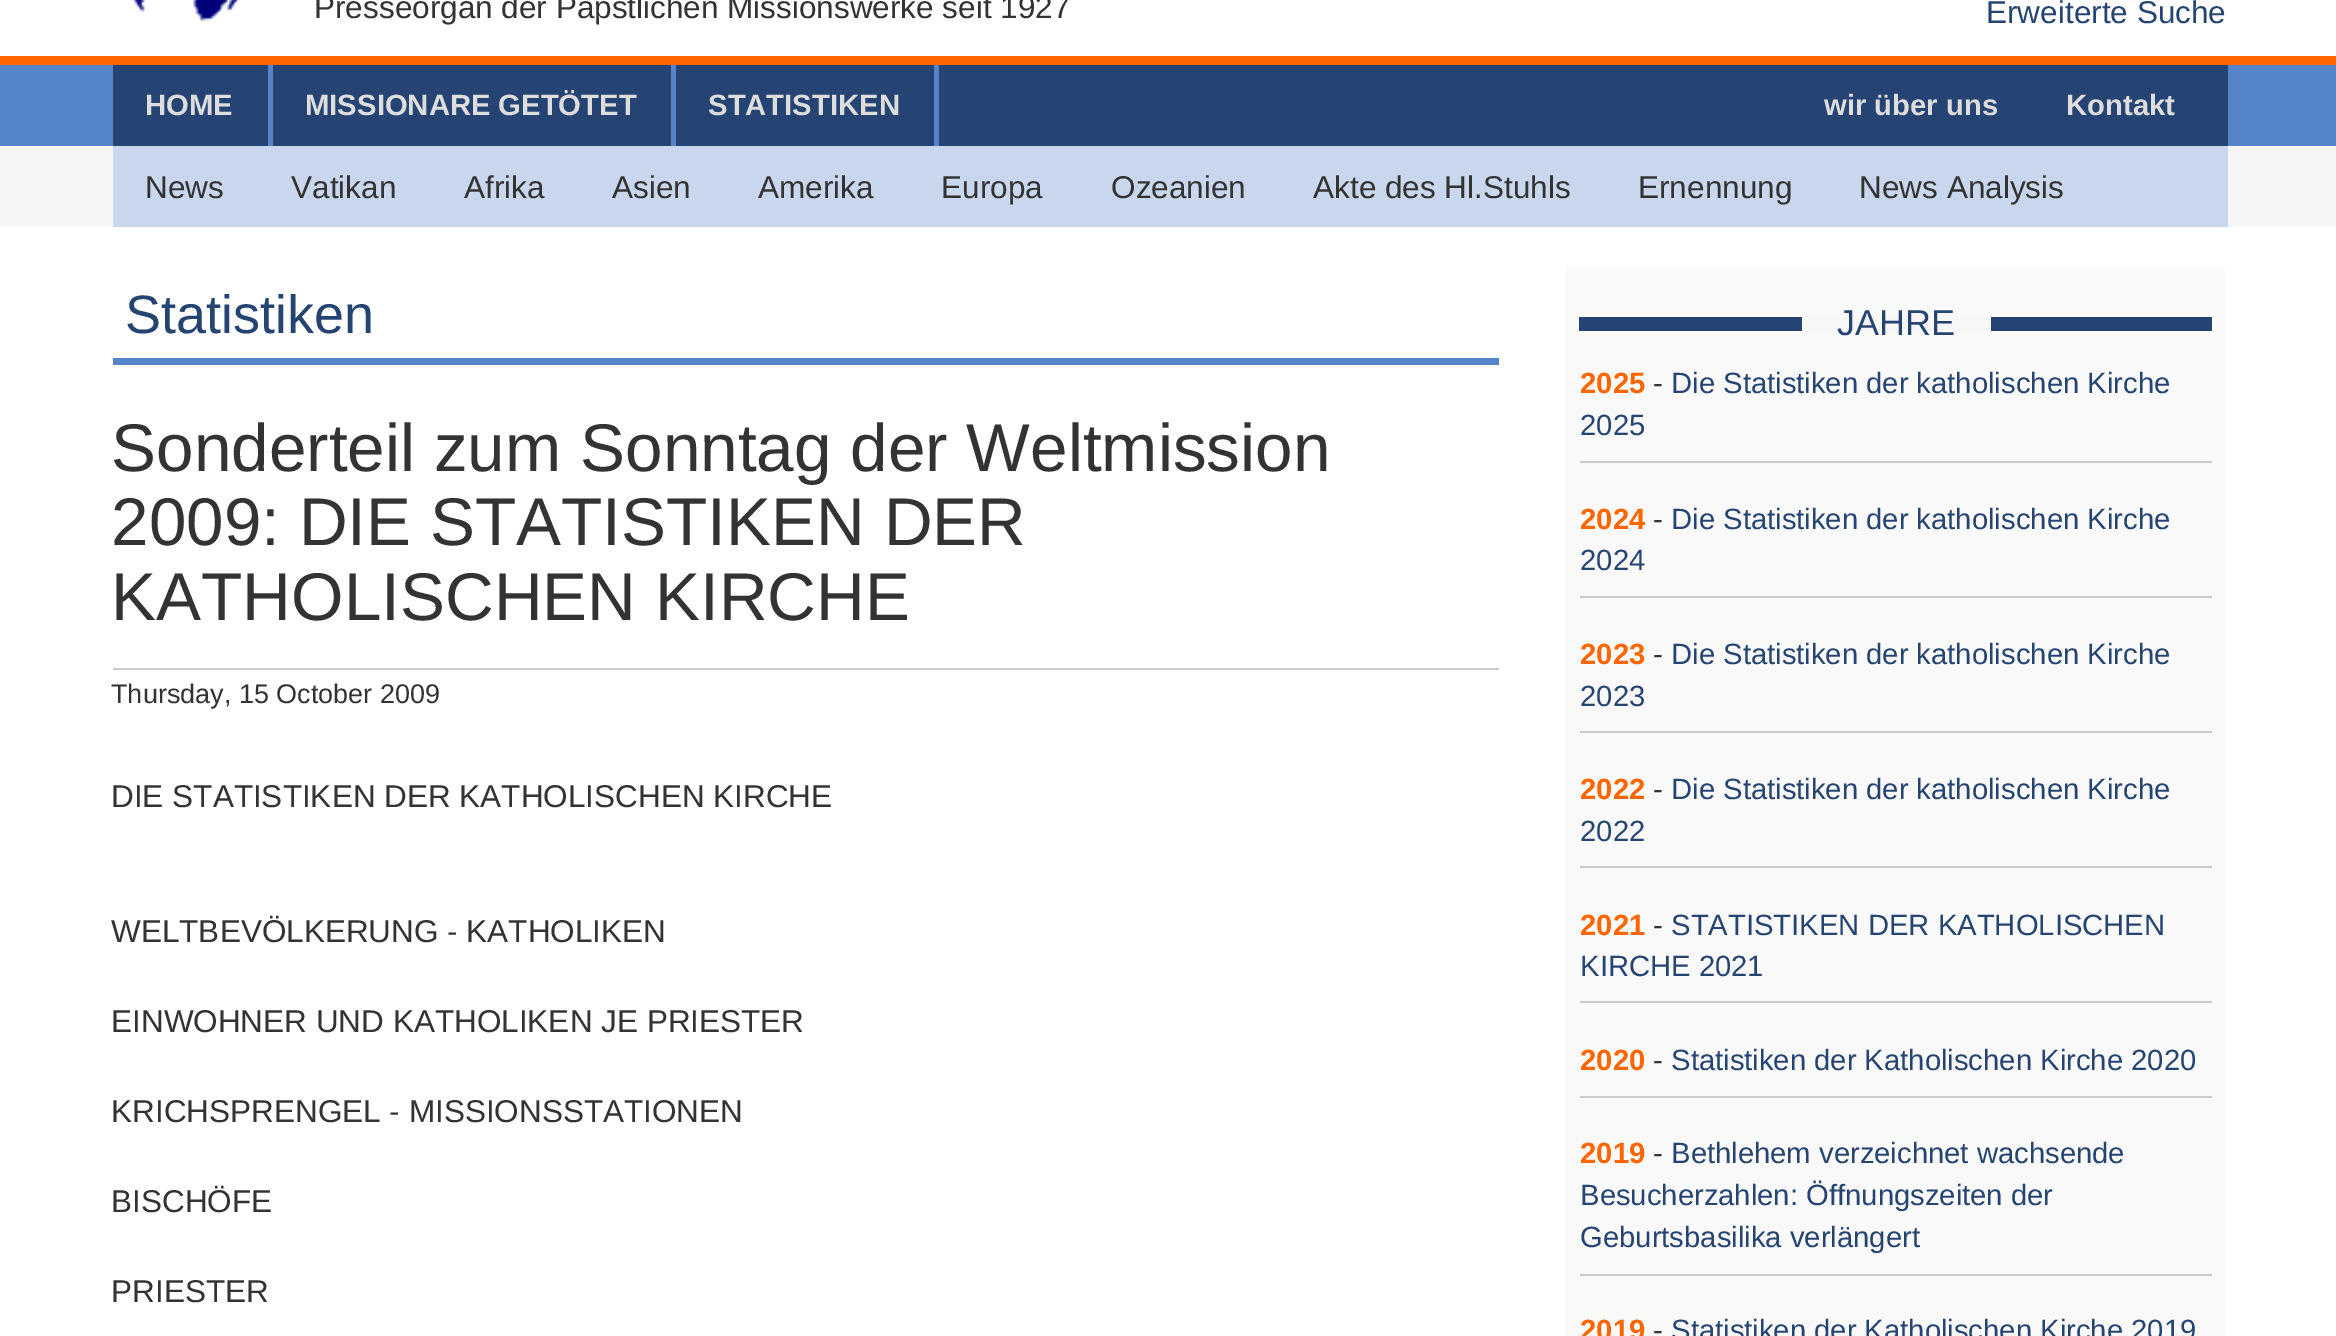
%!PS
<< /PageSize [2336 1336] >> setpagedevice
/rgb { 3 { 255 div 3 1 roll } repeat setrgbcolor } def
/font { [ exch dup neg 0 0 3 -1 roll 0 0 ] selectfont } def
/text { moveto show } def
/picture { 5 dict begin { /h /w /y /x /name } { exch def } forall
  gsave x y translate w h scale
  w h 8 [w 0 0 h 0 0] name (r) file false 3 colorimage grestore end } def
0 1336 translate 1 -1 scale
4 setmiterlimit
255 255 255 rgb
0 0 2336 1336 rectfill
255 102 0 rgb
0 56 2336 9 rectfill
(img_01.rgb) 132 0 107 21 picture
246 246 246 rgb
0 146 2336 81 rectfill
86 132 201 rgb
0 65 2336 81 rectfill
37 68 115 rgb
113 65 2115 81 rectfill
86 132 201 rgb
268 65 5 81 rectfill
671 65 5 81 rectfill
934 65 5 81 rectfill
200 215 238 rgb
113 146 2115 81 rectfill
86 132 201 rgb
113 358 1386 7 rectfill
204 204 204 rgb
113 668 1386 2 rectfill
249 249 249 rgb
1566 268 659 1068 rectfill
37 68 115 rgb
1579 317 633 14 rectfill
247 247 247 rgb
1802 317 189 14 rectfill
204 204 204 rgb
1580 461 632 2 rectfill
1580 596 632 2 rectfill
1580 731 632 2 rectfill
1580 866 632 2 rectfill
1580 1001 632 2 rectfill
1580 1096 632 2 rectfill
1580 1274 632 2 rectfill
/LiberationSans-Regular 31.5 font
51 51 51 rgb
(Presseorgan der Päpstlichen Missionswerke seit 1927) 314 18 text
37 68 114 rgb
(Erweiterte Suche) 1986 23 text
/LiberationSans-Bold 29.25 font
221 221 221 rgb
(HOME) 145 115 text
(MISSIONARE GETÖTET) 305 115 text
(STATISTIKEN) 708 115 text
(wir über uns) 1824 115 text
(Kontakt) 2066 115 text
/LiberationSans-Regular 31.5 font
51 51 51 rgb
(News) 145 198 text
(Vatikan) 291 198 text
(Afrika) 464 198 text
(Asien) 612 198 text
(Amerika) 758 198 text
(Europa) 941 198 text
(Ozeanien) 1111 198 text
(Akte des Hl.Stuhls) 1313 198 text
(Ernennung) 1638 198 text
(News Analysis) 1859 198 text
/LiberationSans-Regular 54 font
37 68 114 rgb
(Statistiken) 125 333 text
/LiberationSans-Regular 67.5 font
51 51 51 rgb
(Sonderteil zum Sonntag der Weltmission) 111 471 text
(2009: DIE STATISTIKEN DER) 111 545 text
(KATHOLISCHEN KIRCHE) 111 620 text
/LiberationSans-Regular 27 font
(Thursday, 15 October 2009) 111 703 text
/LiberationSans-Regular 31.5 font
(DIE STATISTIKEN DER KATHOLISCHEN KIRCHE) 111 807 text
(WELTBEVÖLKERUNG - KATHOLIKEN) 111 942 text
(EINWOHNER UND KATHOLIKEN JE PRIESTER) 111 1032 text
(KRICHSPRENGEL - MISSIONSSTATIONEN) 111 1122 text
(BISCHÖFE) 111 1212 text
(PRIESTER) 111 1302 text
/LiberationSans-Regular 36 font
37 68 114 rgb
(JAHRE) 1837 335 text
/LiberationSans-Bold 29.25 font
255 102 0 rgb
(2025) 1580 393 text
/LiberationSans-Regular 29.25 font
51 51 51 rgb
(-) 1653 393 text
37 68 114 rgb
(Die Statistiken der katholischen Kirche) 1671 393 text
(2025) 1580 435 text
/LiberationSans-Bold 29.25 font
255 102 0 rgb
(2024) 1580 529 text
/LiberationSans-Regular 29.25 font
51 51 51 rgb
(-) 1653 529 text
37 68 114 rgb
(Die Statistiken der katholischen Kirche) 1671 529 text
(2024) 1580 570 text
/LiberationSans-Bold 29.25 font
255 102 0 rgb
(2023) 1580 664 text
/LiberationSans-Regular 29.25 font
51 51 51 rgb
(-) 1653 664 text
37 68 114 rgb
(Die Statistiken der katholischen Kirche) 1671 664 text
(2023) 1580 706 text
/LiberationSans-Bold 29.25 font
255 102 0 rgb
(2022) 1580 799 text
/LiberationSans-Regular 29.25 font
51 51 51 rgb
(-) 1653 799 text
37 68 114 rgb
(Die Statistiken der katholischen Kirche) 1671 799 text
(2022) 1580 841 text
/LiberationSans-Bold 29.25 font
255 102 0 rgb
(2021) 1580 935 text
/LiberationSans-Regular 29.25 font
51 51 51 rgb
(-) 1653 935 text
37 68 114 rgb
(STATISTIKEN DER KATHOLISCHEN) 1671 935 text
(KIRCHE 2021) 1580 976 text
/LiberationSans-Bold 29.25 font
255 102 0 rgb
(2020) 1580 1070 text
/LiberationSans-Regular 29.25 font
51 51 51 rgb
(-) 1653 1070 text
37 68 114 rgb
(Statistiken der Katholischen Kirche 2020) 1671 1070 text
/LiberationSans-Bold 29.25 font
255 102 0 rgb
(2019) 1580 1163 text
/LiberationSans-Regular 29.25 font
51 51 51 rgb
(-) 1653 1163 text
37 68 114 rgb
(Bethlehem verzeichnet wachsende) 1671 1163 text
(Besucherzahlen: Öffnungszeiten der) 1580 1205 text
(Geburtsbasilika verlängert) 1580 1247 text
/LiberationSans-Bold 29.25 font
255 102 0 rgb
(2019) 1580 1340 text
/LiberationSans-Regular 29.25 font
51 51 51 rgb
(-) 1653 1340 text
37 68 114 rgb
(Statistiken der Katholischen Kirche 2019) 1671 1340 text
showpage
